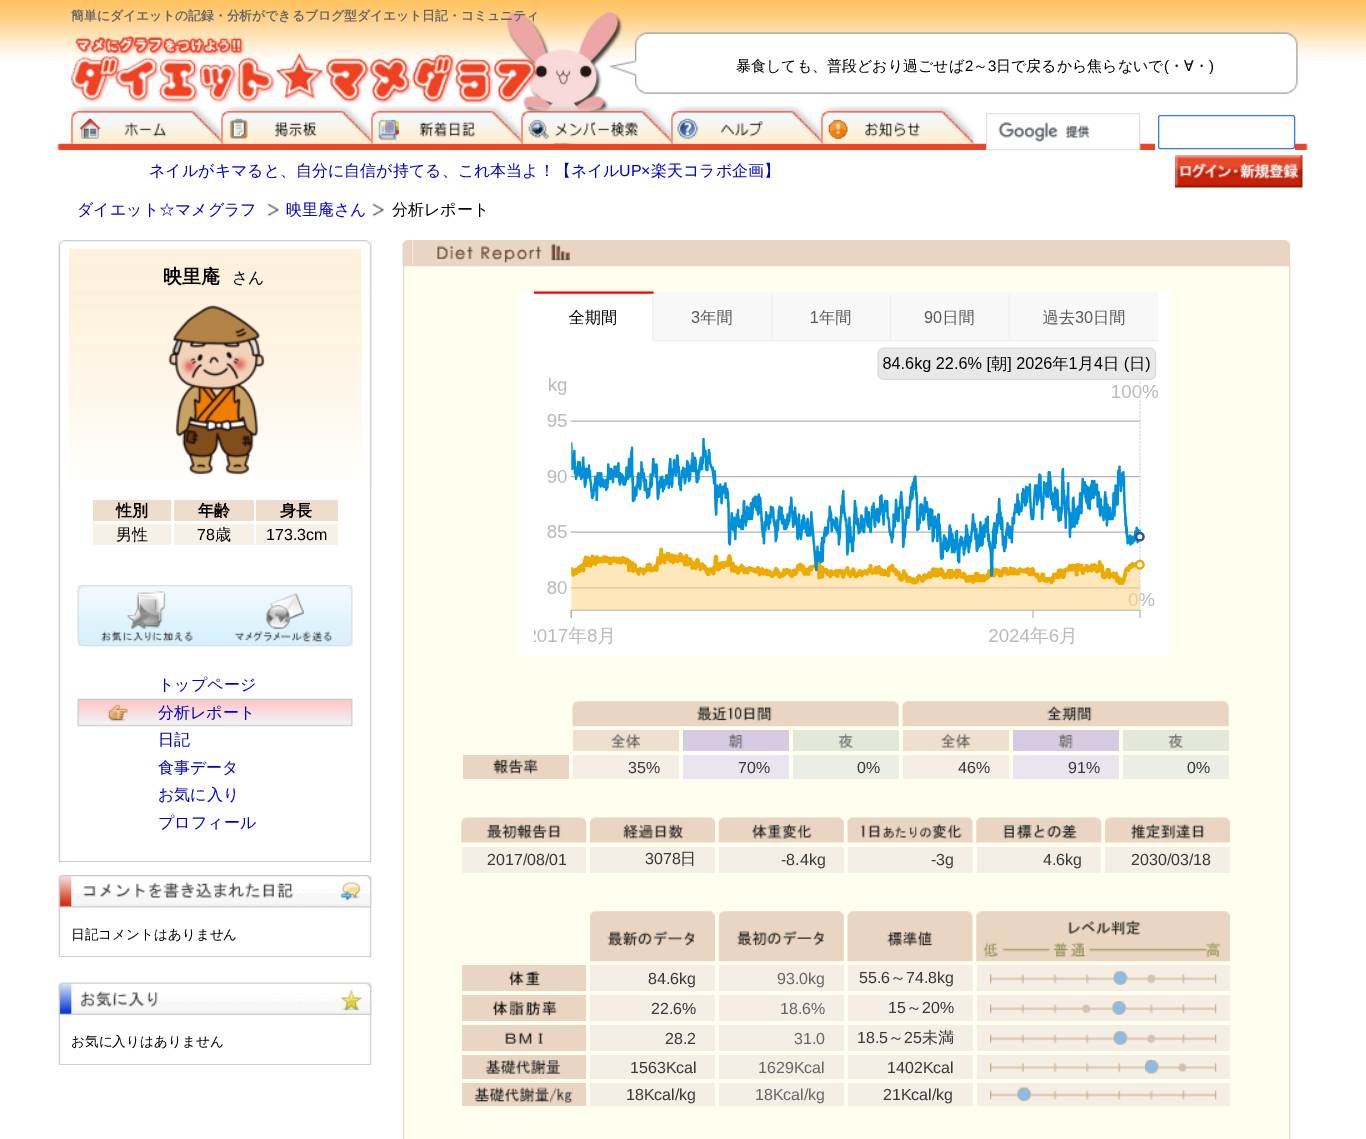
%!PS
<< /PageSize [1366 1139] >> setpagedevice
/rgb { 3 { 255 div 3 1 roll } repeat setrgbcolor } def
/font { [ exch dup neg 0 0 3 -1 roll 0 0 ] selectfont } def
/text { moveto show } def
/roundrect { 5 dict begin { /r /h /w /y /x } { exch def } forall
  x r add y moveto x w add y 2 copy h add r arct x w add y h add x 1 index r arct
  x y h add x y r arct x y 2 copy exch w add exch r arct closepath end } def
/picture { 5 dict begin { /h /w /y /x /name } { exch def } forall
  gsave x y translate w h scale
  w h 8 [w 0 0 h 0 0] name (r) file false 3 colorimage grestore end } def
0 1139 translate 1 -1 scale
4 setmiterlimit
255 255 255 rgb
0 0 1366 1139 rectfill
(img_01.rgb) 0 0 1366 61 picture
(img_02.rgb) 57 12 1251 138 picture
(img_03.rgb) 71 34 466 74 picture
(img_04.rgb) 71 106 151 38 picture
(img_05.rgb) 221 106 151 38 picture
(img_06.rgb) 371 106 151 38 picture
(img_07.rgb) 521 106 151 38 picture
(img_08.rgb) 671 106 151 38 picture
(img_09.rgb) 821 106 153 38 picture
987 143 152 6 rectfill
223 225 229 rgb
986.5 113.5 153 36 rectstroke
(img_10.rgb) 998 122 92 20 picture
255 255 255 rgb
1155 143 140 7 rectfill
48 121 237 rgb
1158.5 115.5 136 33 2 roundrect stroke
(img_11.rgb) 1175 155 128 33 picture
(img_12.rgb) 267 203 12 14 picture
(img_13.rgb) 372 203 12 14 picture
(img_14.rgb) 58 240 314 623 picture
204 204 204 rgb
59 861 312 1 rectfill
(img_15.rgb) 58 240 314 49 picture
(img_16.rgb) 58 289 314 200 picture
(img_17.rgb) 168 305 97 170 picture
238 221 204 rgb
93 500 78 21 rectfill
174 500 80 21 rectfill
256 500 82 21 rectfill
246 240 231 rgb
93 524 78 21 rectfill
174 524 80 21 rectfill
256 524 82 21 rectfill
(img_18.rgb) 77 585 138 62 picture
(img_19.rgb) 215 585 138 62 picture
(img_20.rgb) 77 698 276 29 picture
(img_21.rgb) 58 875 314 83 picture
207 207 207 rgb
59 956 312 1 rectfill
(img_22.rgb) 58 875 314 33 picture
(img_23.rgb) 58 982 314 83 picture
59 1064 312 1 rectfill
(img_24.rgb) 58 982 314 33 picture
(img_25.rgb) 402 240 11 25 picture
233 213 193 rgb
413 240 867 25 rectfill
(img_26.rgb) 437 243 133 20 picture
(img_27.rgb) 1280 240 10 25 picture
255 255 240 rgb
403.5 265.5 moveto 886 0 rlineto 0 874 rlineto -886 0 rlineto closepath gsave fill grestore
233 213 193 rgb
stroke
255 255 255 rgb
521 291 650 365 rectfill
(img_28.rgb) 533 291 626 354 picture
(img_29.rgb) 572 701 327 26 picture
(img_30.rgb) 902 701 327 26 picture
238 223 207 rgb
573 730 106 21 rectfill
(img_31.rgb) 611 733 29 16 picture
214 203 226 rgb
683 730 106 21 rectfill
(img_32.rgb) 728 733 15 16 picture
227 232 217 rgb
793 730 106 21 rectfill
(img_33.rgb) 838 733 15 16 picture
238 223 207 rgb
903 730 106 21 rectfill
(img_31.rgb) 941 733 29 16 picture
214 203 226 rgb
1013 730 106 21 rectfill
(img_34.rgb) 1058 733 15 16 picture
227 232 217 rgb
1123 730 106 21 rectfill
(img_33.rgb) 1168 733 15 16 picture
233 213 193 rgb
463 755 106 24 rectfill
(img_35.rgb) 493 758 45 16 picture
245 238 229 rgb
573 755 106 24 rectfill
234 228 240 rgb
683 755 106 24 rectfill
234 238 228 rgb
793 755 106 24 rectfill
245 238 229 rgb
903 755 106 24 rectfill
234 228 240 rgb
1013 755 106 24 rectfill
234 238 228 rgb
1123 755 106 24 rectfill
(img_36.rgb) 461 817 126 26 picture
(img_37.rgb) 590 817 125 26 picture
(img_38.rgb) 718 817 126 26 picture
(img_39.rgb) 847 817 126 26 picture
(img_40.rgb) 976 817 126 26 picture
(img_41.rgb) 1105 817 125 26 picture
245 238 229 rgb
462 847 124 26 rectfill
590 847 125 26 rectfill
719 847 125 26 rectfill
848 847 125 26 rectfill
977 847 124 26 rectfill
1105 847 125 26 rectfill
(img_42.rgb) 590 911 125 51 picture
(img_43.rgb) 718 911 126 51 picture
(img_44.rgb) 847 911 126 51 picture
(img_45.rgb) 976 911 254 51 picture
233 213 193 rgb
462 965 124 26 rectfill
(img_46.rgb) 508 971 32 15 picture
245 238 229 rgb
590 965 125 26 rectfill
719 965 125 26 rectfill
848 965 125 26 rectfill
977 965 253 26 rectfill
(img_47.rgb) 990 973 227 11 picture
(img_48.rgb) 1113 971 15 14 picture
(img_49.rgb) 1147 974 9 10 picture
233 213 193 rgb
462 995 124 26 rectfill
(img_50.rgb) 492 1001 65 15 picture
245 238 229 rgb
590 995 125 26 rectfill
719 995 125 26 rectfill
848 995 125 26 rectfill
977 995 253 26 rectfill
(img_47.rgb) 990 1003 227 11 picture
(img_51.rgb) 1082 1003 9 11 picture
(img_52.rgb) 1112 1001 15 14 picture
233 213 193 rgb
462 1025 124 26 rectfill
(img_53.rgb) 505 1032 38 12 picture
245 238 229 rgb
590 1025 125 26 rectfill
719 1025 125 26 rectfill
848 1025 125 26 rectfill
977 1025 253 26 rectfill
(img_47.rgb) 990 1033 227 11 picture
(img_48.rgb) 1113 1031 15 14 picture
(img_49.rgb) 1147 1034 9 10 picture
233 213 193 rgb
462 1055 124 24 rectfill
(img_54.rgb) 486 1060 75 14 picture
245 238 229 rgb
590 1055 125 24 rectfill
719 1055 125 24 rectfill
848 1055 125 24 rectfill
977 1055 253 24 rectfill
(img_55.rgb) 990 1062 227 11 picture
(img_56.rgb) 1145 1060 14 14 picture
(img_57.rgb) 1178 1062 9 11 picture
233 213 193 rgb
462 1083 124 23 rectfill
(img_58.rgb) 475 1087 98 16 picture
245 238 229 rgb
590 1083 125 23 rectfill
719 1083 125 23 rectfill
848 1083 125 23 rectfill
977 1083 253 23 rectfill
(img_59.rgb) 990 1090 227 10 picture
(img_60.rgb) 1017 1087 15 15 picture
/WenQuanYiZenHei-Bold 12.8 font
102 102 102 rgb
(簡単にダイエットの記録・分析ができるブログ型ダイエット日記・コミュニティ) 71 20 text
/WenQuanYiZenHei-Medium 15 font
0 0 0 rgb
(暴食しても、普段どおり過ごせば) 736 71 text
/LiberationSans-Regular 15 font
(2) 965 71 text
/WenQuanYiZenHei-Medium 15 font
(～) 973 71 text
/LiberationSans-Regular 15 font
(3) 988 71 text
/WenQuanYiZenHei-Medium 15 font
(日で戻るから焦らないで) 996 71 text
/LiberationSans-Regular 15 font
(\() 1164 71 text
/WenQuanYiZenHei-Medium 15 font
(・∀・) 1169 71 text
/LiberationSans-Regular 15 font
(\)) 1209 71 text
/WenQuanYiZenHei-Medium 16 font
0 0 204 rgb
(ネイルがキマると、自分に自信が持てる、これ本当よ！【ネイル) 149 176 text
/LiberationSans-Regular 16 font
(UP×) 619 176 text
/WenQuanYiZenHei-Medium 16 font
(楽天コラボ企画】) 651 176 text
(ダイエット☆マメグラフ) 77 215 text
(映里庵さん) 286 215 text
0 0 0 rgb
(分析レポート) 392 215 text
/WenQuanYiZenHei-Bold 19 font
(映里庵) 163 283 text
/WenQuanYiZenHei-Medium 16 font
(さん) 232 283 text
/WenQuanYiZenHei-Bold 16 font
(性別) 116 516 text
(年齢) 198 516 text
(身長) 280 516 text
/WenQuanYiZenHei-Medium 16 font
(男性) 116 540 text
/LiberationSans-Regular 16 font
(78) 197 540 text
/WenQuanYiZenHei-Medium 16 font
(歳) 215 540 text
/LiberationSans-Regular 16 font
(173.3cm) 266 540 text
/WenQuanYiZenHei-Medium 16 font
0 0 204 rgb
(トップページ) 158 690 text
(分析レポート) 158 718 text
(日記) 158 745 text
(食事データ) 158 773 text
(お気に入り) 158 800 text
(プロフィール) 158 828 text
/WenQuanYiZenHei-Medium 13.6 font
0 0 0 rgb
(日記コメントはありません) 71 939 text
(お気に入りはありません) 71 1046 text
/LiberationSans-Regular 16 font
58 58 58 rgb
(35%) 628 773 text
(70%) 738 773 text
(0%) 857 773 text
(46%) 958 773 text
(91%) 1068 773 text
(0%) 1187 773 text
(2017/08/01) 487 865 text
(3078) 645 864 text
/WenQuanYiZenHei-Medium 16 font
(日) 680 864 text
/LiberationSans-Regular 16 font
(-8.4kg) 781 865 text
(-3g) 931 865 text
(4.6kg) 1043 865 text
(2030/03/18) 1131 865 text
(84.6kg) 648 984 text
102 102 102 rgb
(93.0kg) 777 984 text
58 58 58 rgb
(55.6) 859 983 text
/WenQuanYiZenHei-Medium 16 font
(～) 890 983 text
/LiberationSans-Regular 16 font
(74.8kg) 906 983 text
(22.6%) 651 1014 text
102 102 102 rgb
(18.6%) 780 1014 text
58 58 58 rgb
(15) 888 1013 text
/WenQuanYiZenHei-Medium 16 font
(～) 906 1013 text
/LiberationSans-Regular 16 font
(20%) 922 1013 text
(28.2) 665 1044 text
102 102 102 rgb
(31.0) 794 1044 text
58 58 58 rgb
(18.5) 857 1043 text
/WenQuanYiZenHei-Medium 16 font
(～) 888 1043 text
/LiberationSans-Regular 16 font
(25) 904 1043 text
/WenQuanYiZenHei-Medium 16 font
(未満) 922 1043 text
/LiberationSans-Regular 16 font
(1563Kcal) 630 1073 text
102 102 102 rgb
(1629Kcal) 758 1073 text
58 58 58 rgb
(1402Kcal) 887 1073 text
(18Kcal/kg) 626 1100 text
102 102 102 rgb
(18Kcal/kg) 755 1100 text
58 58 58 rgb
(21Kcal/kg) 883 1100 text
showpage
